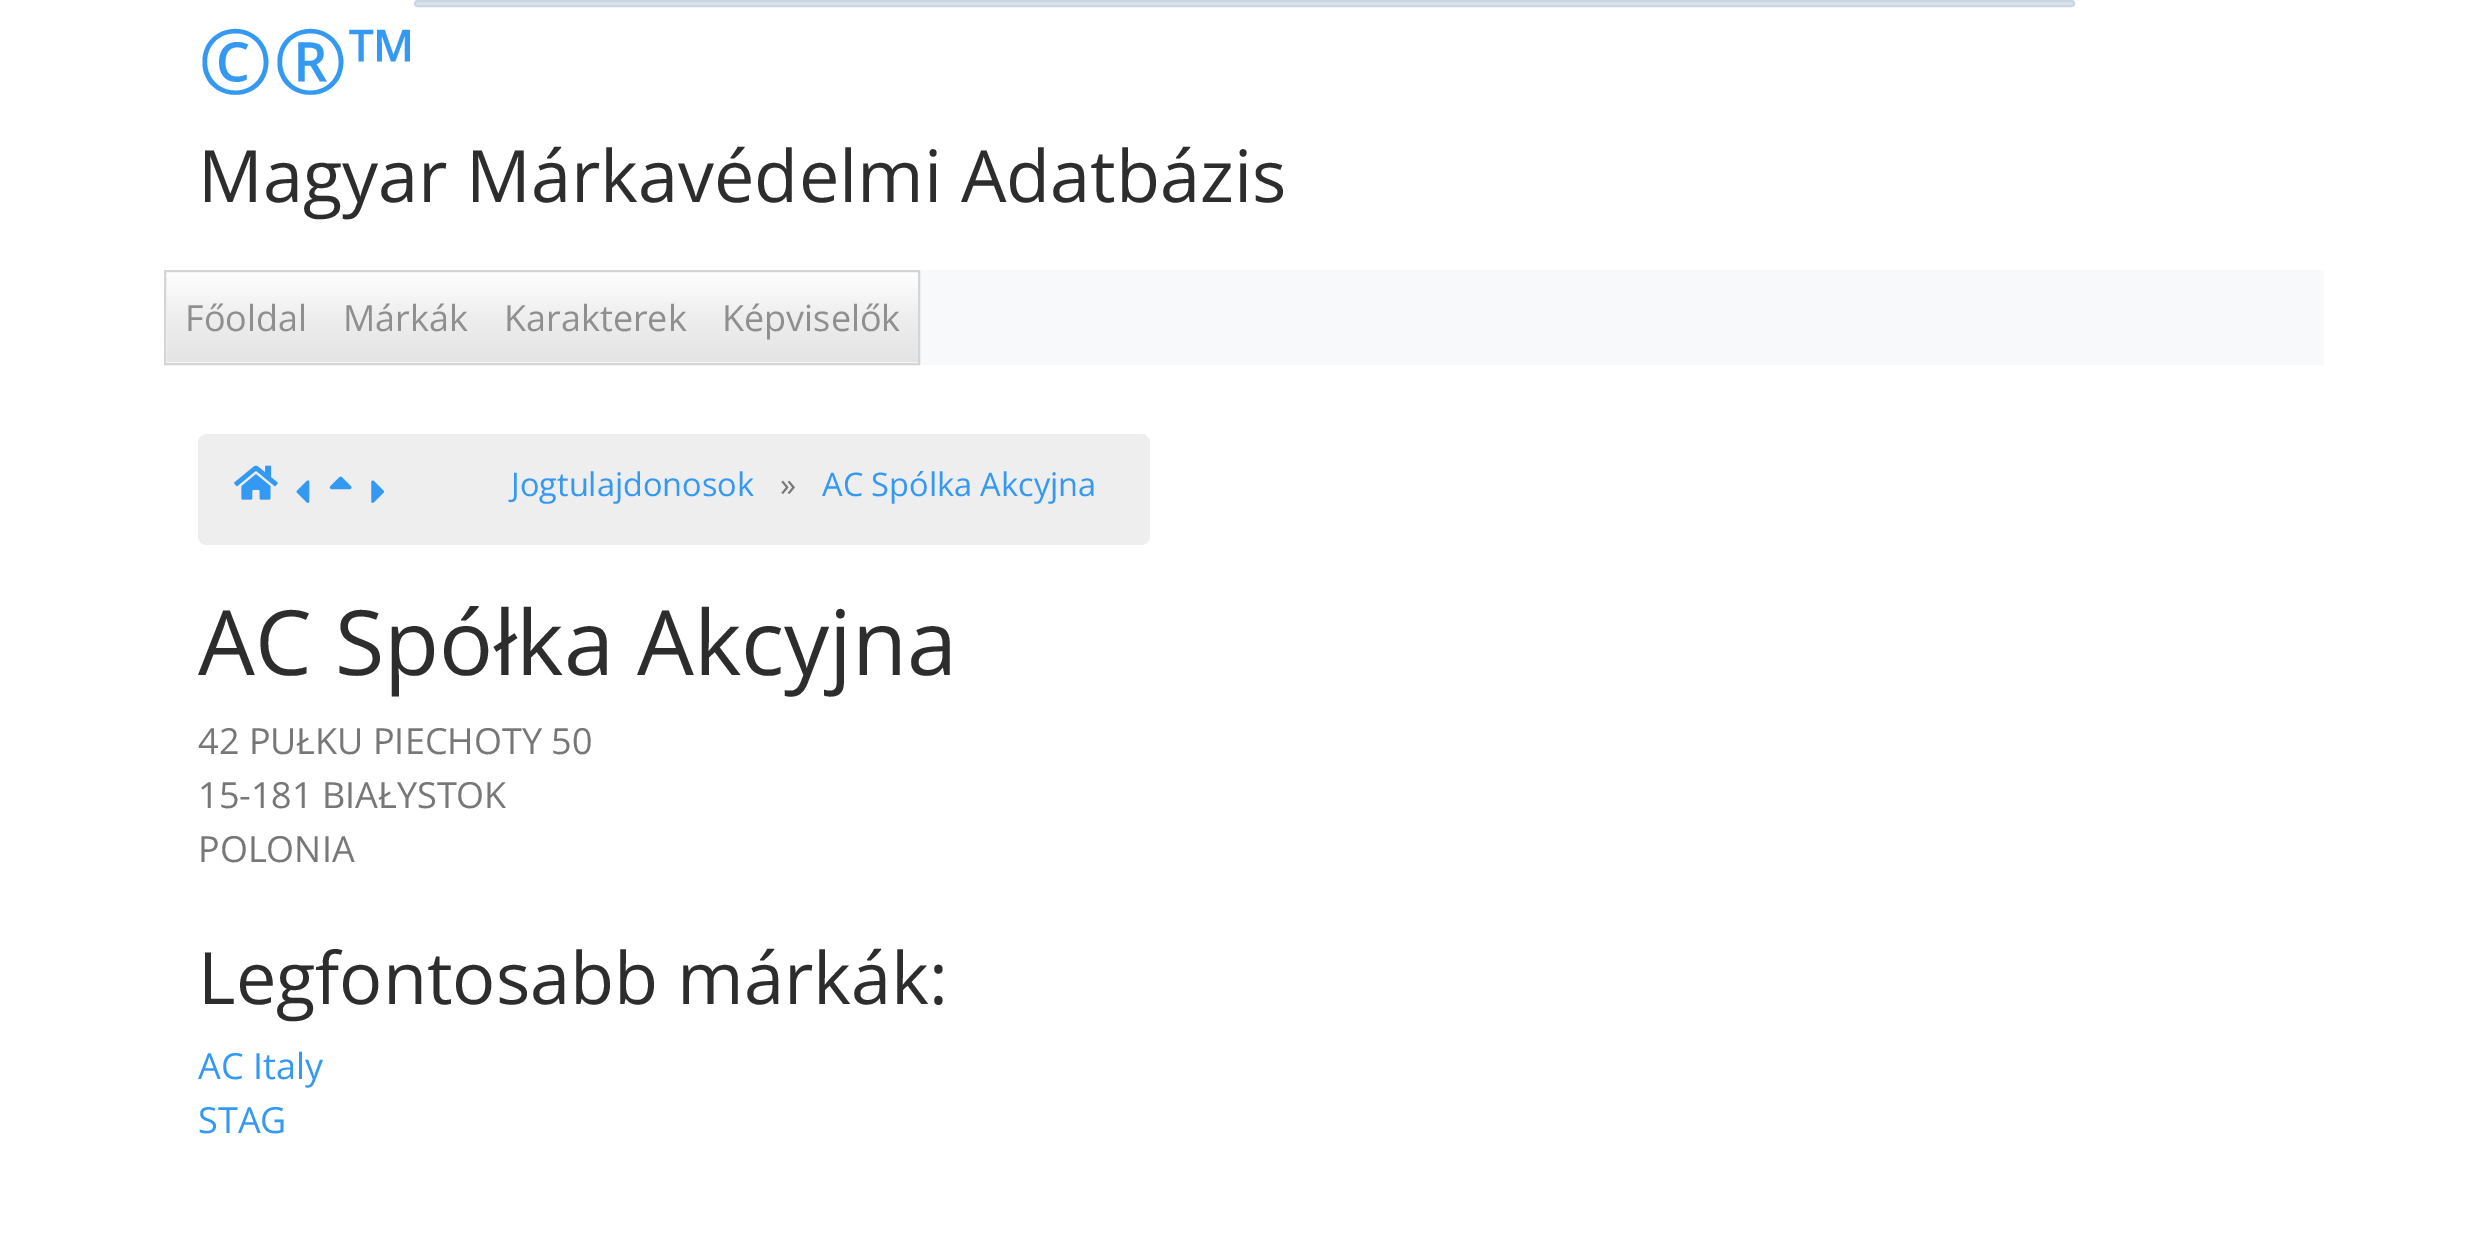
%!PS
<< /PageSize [2487 1258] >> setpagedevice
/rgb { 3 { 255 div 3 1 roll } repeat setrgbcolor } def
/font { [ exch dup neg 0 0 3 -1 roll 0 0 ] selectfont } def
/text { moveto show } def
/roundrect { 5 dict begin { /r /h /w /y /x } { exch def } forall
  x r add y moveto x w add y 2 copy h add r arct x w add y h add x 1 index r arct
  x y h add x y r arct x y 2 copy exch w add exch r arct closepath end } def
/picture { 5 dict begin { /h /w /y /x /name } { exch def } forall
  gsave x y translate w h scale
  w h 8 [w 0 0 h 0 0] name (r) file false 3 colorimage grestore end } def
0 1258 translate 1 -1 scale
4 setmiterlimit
255 255 255 rgb
0 0 2487 1258 rectfill
218 226 235 rgb
415 1 1659 5 2.5 roundrect gsave fill grestore
203 214 227 rgb
2 setlinewidth
stroke
248 249 250 rgb
166 270 2158 95 rectfill
gsave 167 272 moveto 751 0 rlineto 0 90 rlineto -751 0 rlineto closepath clip newpath
<< /ShadingType 2 /ColorSpace /DeviceRGB /Coords [542 272 542 362] /Extend [true true] /Function << /FunctionType 3 /Domain [0 1] /Functions [<< /FunctionType 2 /Domain [0 1] /C0 [1 1 1] /C1 [0.933 0.933 0.933] /N 1 >> << /FunctionType 2 /Domain [0 1] /C0 [0.933 0.933 0.933] /C1 [0.894 0.894 0.894] /N 1 >>] /Bounds [0.5] /Encode [0 1 0 1] >> >> shfill grestore
213 213 213 rgb
165 271 754 93 rectstroke
238 238 238 rgb
198 434 952 111 9 roundrect fill
(img_01.rgb) 234 465 44 35 picture
(img_02.rgb) 296 480 14 23 picture
(img_03.rgb) 329 476 23 14 picture
(img_04.rgb) 371 480 14 23 picture
/OpenSans-Regular 90 font
51 153 243 rgb
(©®™) 198 94 text
/OpenSans-Regular 72 font
45 45 45 rgb
(Magyar Márkavédelmi Adatbázis) 198 202 text
/OpenSans-Regular 36 font
143 143 143 rgb
(Főoldal) 185 331 text
(Márkák) 343 331 text
(Karakterek) 504 331 text
(Képviselők) 722 331 text
/OpenSans-Regular 32.5 font
51 153 243 rgb
(Jogtulajdonosok) 511 496 text
119 119 119 rgb
(») 780 496 text
51 153 243 rgb
(AC Spólka Akcyjna) 822 496 text
/OpenSans-Regular 90 font
45 45 45 rgb
(AC Spółka Akcyjna) 198 675 text
/OpenSans-Regular 36 font
119 119 119 rgb
(42 PUŁKU PIECHOTY 50) 198 754 text
(15-181 BIAŁYSTOK) 198 808 text
(POLONIA) 198 862 text
/OpenSans-Regular 72 font
45 45 45 rgb
(Legfontosabb márkák:) 198 1004 text
/OpenSans-Regular 36 font
51 153 243 rgb
(AC Italy) 198 1079 text
(STAG) 198 1133 text
showpage
